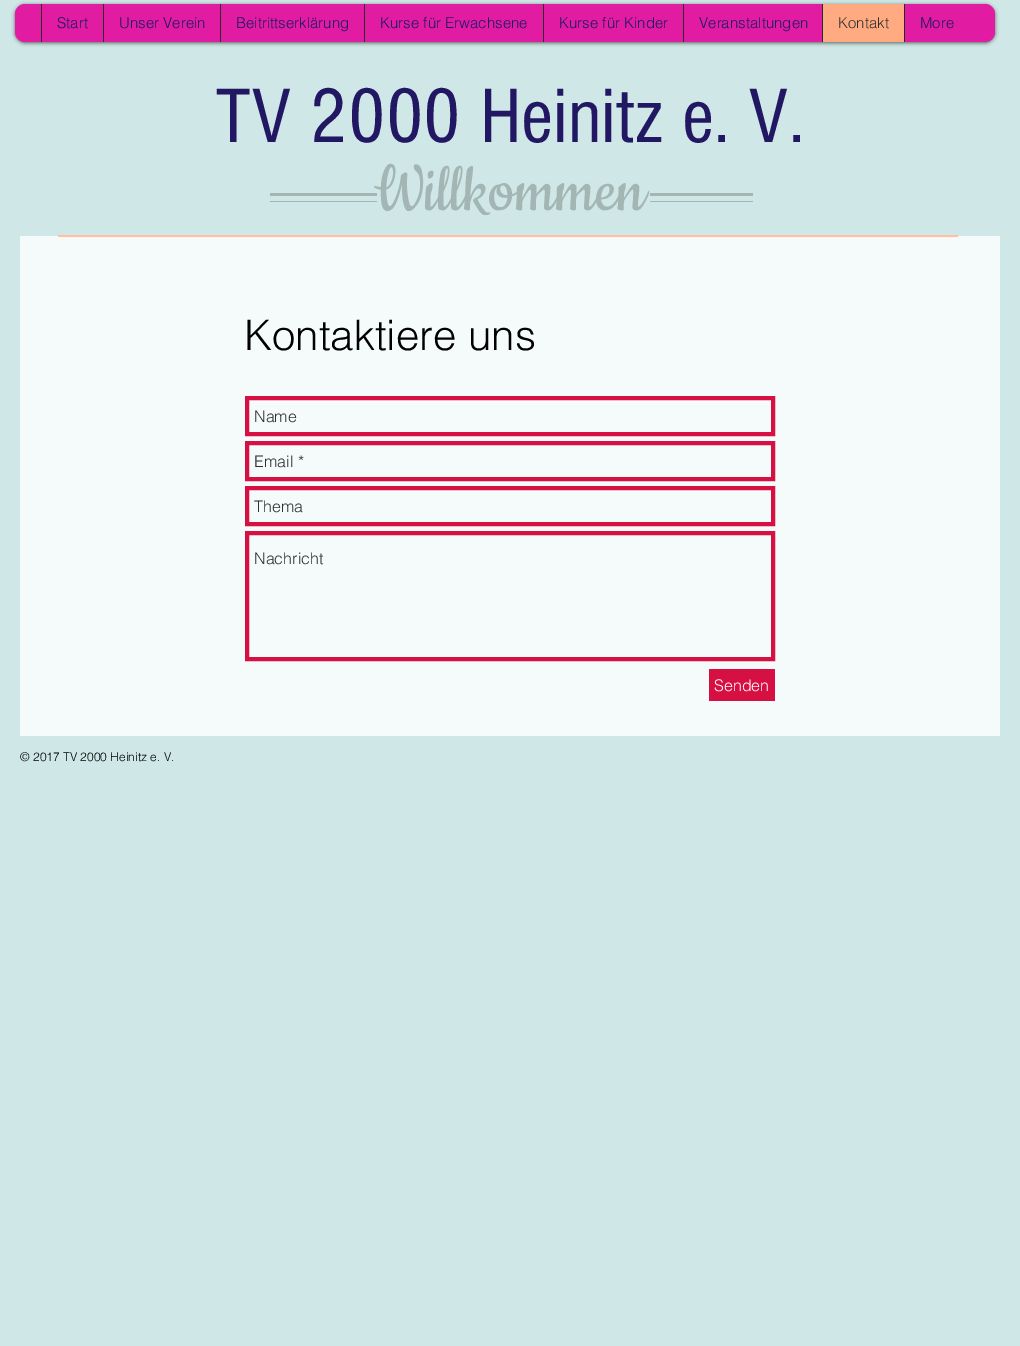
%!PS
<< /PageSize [1020 1346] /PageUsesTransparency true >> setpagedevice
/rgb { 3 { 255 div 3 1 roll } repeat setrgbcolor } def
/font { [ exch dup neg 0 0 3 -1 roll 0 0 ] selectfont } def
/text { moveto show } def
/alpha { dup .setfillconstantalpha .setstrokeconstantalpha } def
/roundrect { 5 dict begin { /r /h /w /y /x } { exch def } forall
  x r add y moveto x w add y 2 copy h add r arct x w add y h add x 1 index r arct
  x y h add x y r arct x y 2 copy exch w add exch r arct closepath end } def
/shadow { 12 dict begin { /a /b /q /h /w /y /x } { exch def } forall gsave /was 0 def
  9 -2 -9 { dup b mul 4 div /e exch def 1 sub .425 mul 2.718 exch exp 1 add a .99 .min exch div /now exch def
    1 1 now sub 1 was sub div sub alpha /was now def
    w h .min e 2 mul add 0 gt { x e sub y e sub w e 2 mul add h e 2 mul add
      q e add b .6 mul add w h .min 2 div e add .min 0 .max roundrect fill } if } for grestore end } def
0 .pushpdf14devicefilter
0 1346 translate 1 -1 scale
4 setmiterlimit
207 232 231 rgb
0 0 1020 1346 rectfill
0 0 0 rgb
15 5 980 38 10 2 0.6 shadow
226 28 162 rgb
15 4 980 38 10 roundrect fill
42 42 42 rgb
41 4 1 38 rectfill
103 4 1 38 rectfill
220 4 1 38 rectfill
364 4 1 38 rectfill
543 4 1 38 rectfill
683 4 1 38 rectfill
255 170 129 rgb
823 4 81 38 rectfill
42 42 42 rgb
822 4 1 38 rectfill
904 4 1 38 rectfill
164 182 180 rgb
270 193 107 3 rectfill
270 201 107 1 rectfill
650 193 103 3 rectfill
650 201 103 1 rectfill
245 250 250 rgb
20 236 980 500 rectfill
255 243 237 rgb
60 236 900 2 rectfill
255 193 163 rgb
58 235 900 2 rectfill
214 16 67 rgb
4 setlinewidth
247 398 526 36 rectstroke
247 443 526 36 rectstroke
247 488 526 36 rectstroke
247 533 526 126 rectstroke
709 669 66 32 rectfill
/helvetica-Light 15 font
24 22 101 rgb
(Start) 57 28 text
(Unser Verein) 119 28 text
(Beitrittserklärung) 236 28 text
(Kurse für Erwachsene) 380 28 text
(Kurse für Kinder) 559 28 text
(Veranstaltungen) 699 28 text
46 46 46 rgb
(Kontakt) 838 28 text
24 22 101 rgb
(More) 920 28 text
/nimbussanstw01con-Regular 80 font
33 23 99 rgb
(TV 2000 Heinitz e. V.) 215 142 text
/Cookie-Regular 74 font
164 182 180 rgb
(Willkommen) 374 210 text
/helvetica-Light 42 font
0 0 0 rgb
(Kontaktiere uns) 244 350 text
/helvetica-Light 16 font
46 46 46 rgb
(Name) 254 422 text
(Email *) 254 467 text
(Thema) 254 512 text
(Nachricht) 254 564 text
255 255 255 rgb
(Senden) 714 691 text
/helvetica-Light 12 font
0 0 0 rgb
(© 2017 TV 2000 Heinitz e. V.) 20 761 text
.poppdf14devicefilter showpage
